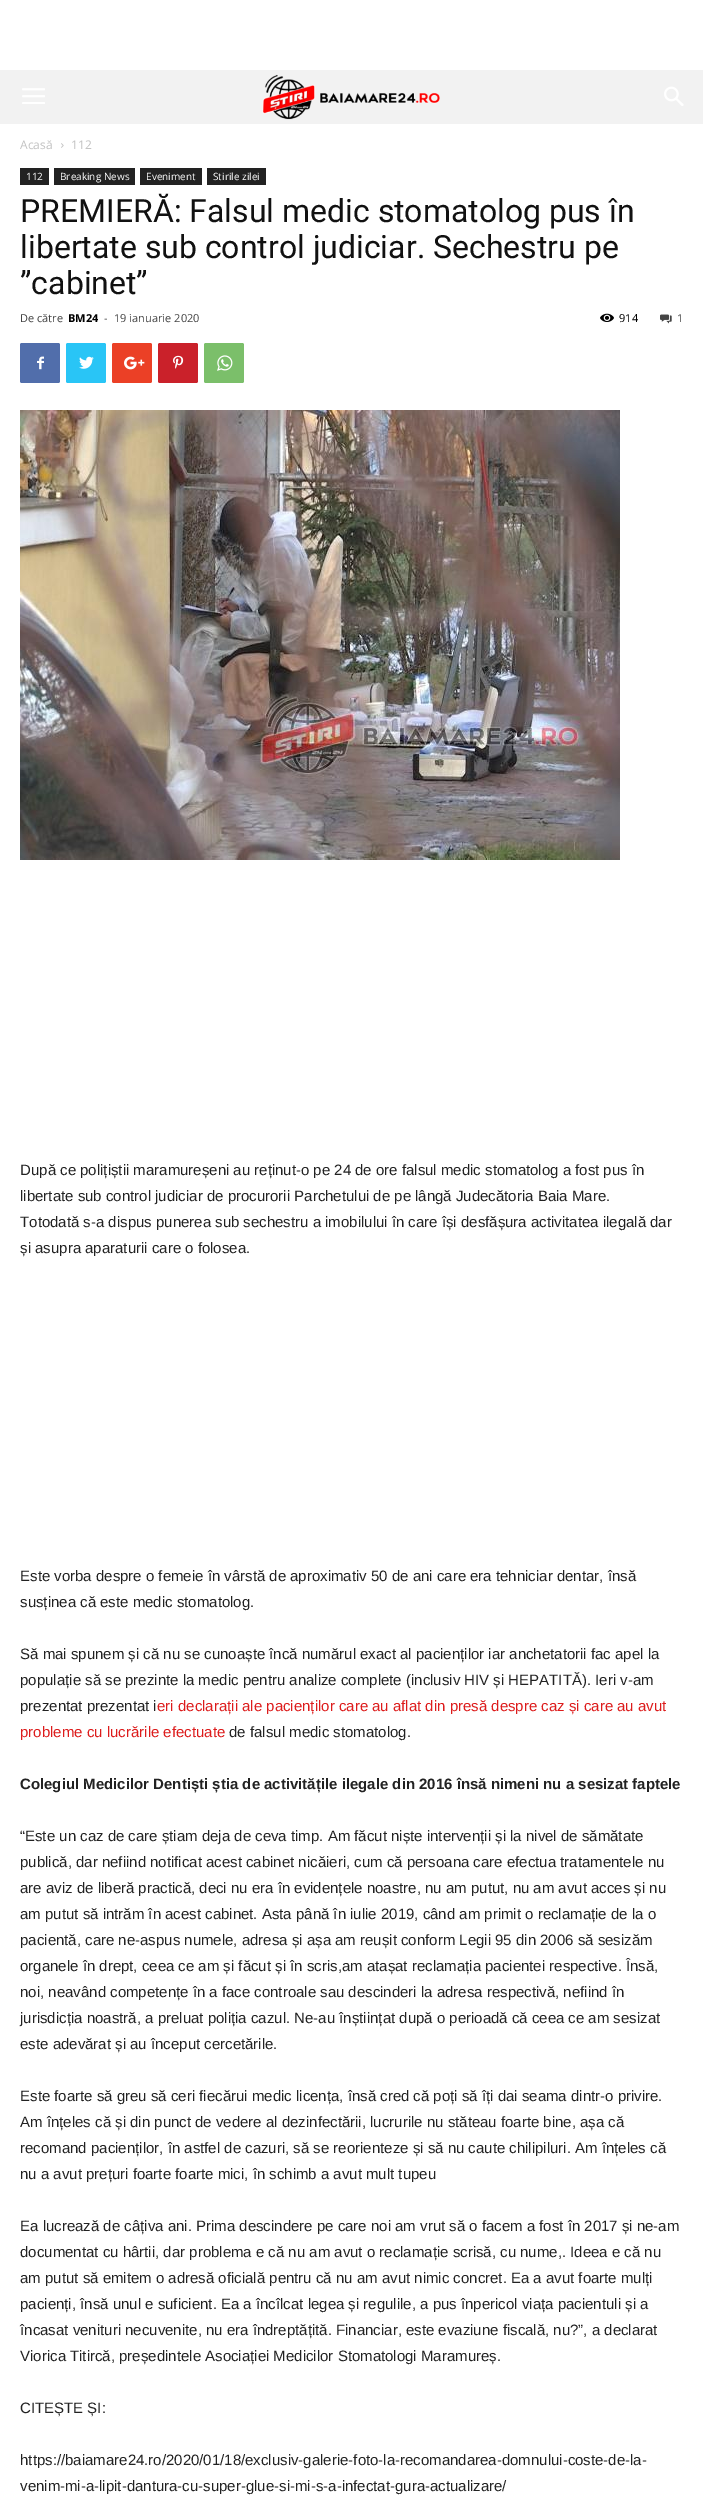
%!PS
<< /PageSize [703 2502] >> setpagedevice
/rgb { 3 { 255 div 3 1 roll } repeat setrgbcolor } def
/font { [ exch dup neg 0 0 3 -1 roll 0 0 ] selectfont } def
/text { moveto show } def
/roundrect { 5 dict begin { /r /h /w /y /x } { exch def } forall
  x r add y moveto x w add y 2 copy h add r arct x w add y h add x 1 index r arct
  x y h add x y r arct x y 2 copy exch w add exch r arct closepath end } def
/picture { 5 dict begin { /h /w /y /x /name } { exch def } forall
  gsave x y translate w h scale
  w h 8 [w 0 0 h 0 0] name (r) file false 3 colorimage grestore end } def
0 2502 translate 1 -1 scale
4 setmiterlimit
255 255 255 rgb
0 0 703 2502 rectfill
242 242 242 rgb
0 70 703 54 rectfill
(img_01.rgb) 22 88 23 16 picture
(img_02.rgb) 262 74 178 46 picture
(img_03.rgb) 664 86 20 20 picture
(img_04.rgb) 61 143 3 5 picture
34 34 34 rgb
20 168 29 17 rectfill
54 168 81 17 rectfill
140 168 62 17 rectfill
207 168 59 17 rectfill
(img_05.rgb) 600 313 14 9 picture
(img_06.rgb) 660 314 12 10 picture
81 110 171 rgb
20 343 40 40 2 roundrect fill
(img_07.rgb) 37 356 7 14 picture
41 197 246 rgb
66 343 40 40 2 roundrect fill
(img_08.rgb) 79 356 15 13 picture
235 64 38 rgb
112 343 40 40 2 roundrect fill
(img_09.rgb) 124 356 21 14 picture
202 33 42 rgb
158 343 40 40 2 roundrect fill
(img_10.rgb) 173 355 11 14 picture
123 191 106 rgb
204 343 40 40 2 roundrect fill
(img_11.rgb) 217 355 16 16 picture
(img_12.rgb) 20 410 600 450 picture
/OpenSans-Regular 12 font
195 195 195 rgb
(Acasă) 20 149 text
(112) 71 149 text
/OpenSans-Regular 10 font
255 255 255 rgb
(112) 26 180 text
(Breaking News) 60 180 text
(Eveniment) 146 180 text
(Stirile zilei) 213 180 text
/Roboto-Regular 32 font
17 17 17 rgb
(PREMIERĂ: Falsul medic stomatolog pus în) 20 222 text
(libertate sub control judiciar. Sechestru pe) 20 258 text
(”cabinet”) 20 294 text
/OpenSans-Regular 11 font
68 68 68 rgb
(De către) 20 322 text
/OpenSans-Bold 11 font
0 0 0 rgb
(BM24) 68 322 text
/OpenSans-Regular 11 font
68 68 68 rgb
(-) 104 322 text
(19 ianuarie 2020) 114 322 text
0 0 0 rgb
(914) 619 322 text
68 68 68 rgb
(1) 677 322 text
/LiberationSans-Regular 15 font
34 34 34 rgb
(După ce polițiștii maramureșeni au reținut-o pe 24 de ore falsul medic stomatolog a fost pus în) 20 1175 text
(libertate sub control judiciar de procurorii Parchetului de pe lângă Judecătoria Baia Mare.) 20 1201 text
(Totodată s-a dispus punerea sub sechestru a imobilului în care își desfășura activitatea ilegală dar) 20 1227 text
(și asupra aparaturii care o folosea.) 20 1253 text
(Este vorba despre o femeie în vârstă de aproximativ 50 de ani care era tehniciar dentar, însă) 20 1581 text
(susținea că este medic stomatolog.) 20 1607 text
(Să mai spunem și că nu se cunoaște încă numărul exact al pacienților iar anchetatorii fac apel la) 20 1659 text
(populație să se prezinte la medic pentru analize complete \(inclusiv HIV și HEPATITĂ\). Ieri v-am) 20 1685 text
(prezentat prezentat i) 20 1711 text
221 28 28 rgb
(eri declarații ale pacienților care au aflat din presă despre caz și care au avut) 157 1711 text
(probleme cu lucrările efectuate) 20 1737 text
34 34 34 rgb
(de falsul medic stomatolog.) 229 1737 text
/LiberationSans-Bold 15 font
(Colegiul Medicilor Dentiști știa de activitățile ilegale din 2016 însă nimeni nu a sesizat faptele) 20 1789 text
/LiberationSans-Regular 15 font
(“Este un caz de care știam deja de ceva timp. Am făcut niște intervenții și la nivel de sămătate) 20 1841 text
(publică, dar nefiind notificat acest cabinet nicăieri, cum că persoana care efectua tratamentele nu) 20 1867 text
(are aviz de liberă practică, deci nu era în evidențele noastre, nu am putut, nu am avut acces și nu) 20 1893 text
(am putut să intrăm în acest cabinet. Asta până în iulie 2019, când am primit o reclamație de la o) 20 1919 text
(pacientă, care ne-aspus numele, adresa și așa am reușit conform Legii 95 din 2006 să sesizăm) 20 1945 text
(organele în drept, ceea ce am și făcut și în scris,am atașat reclamația pacientei respective. Însă,) 20 1971 text
(noi, neavând competențe în a face controale sau descinderi la adresa respectivă, nefiind în) 20 1997 text
(jurisdicția noastră, a preluat poliția cazul. Ne-au înștiințat după o perioadă că ceea ce am sesizat) 20 2023 text
(este adevărat și au început cercetările.) 20 2049 text
(Este foarte să greu să ceri fiecărui medic licența, însă cred că poți să îți dai seama dintr-o privire.) 20 2101 text
(Am înțeles că și din punct de vedere al dezinfectării, lucrurile nu stăteau foarte bine, așa că) 20 2127 text
(recomand pacienților, în astfel de cazuri, să se reorienteze și să nu caute chilipiluri. Am înțeles că) 20 2153 text
(nu a avut prețuri foarte foarte mici, în schimb a avut mult tupeu) 20 2179 text
(Ea lucrează de câțiva ani. Prima descindere pe care noi am vrut să o facem a fost în 2017 și ne-am) 20 2231 text
(documentat cu hârtii, dar problema e că nu am avut o reclamație scrisă, cu nume,. Ideea e că nu) 20 2257 text
(am putut să emitem o adresă oficială pentru că nu am avut nimic concret. Ea a avut foarte mulți) 20 2283 text
(pacienți, însă unul e suficient. Ea a încîlcat legea și regulile, a pus înpericol viața pacientuli și a) 20 2309 text
(încasat venituri necuvenite, nu era îndreptățită. Financiar, este evaziune fiscală, nu?”, a declarat) 20 2335 text
(Viorica Titircă, președintele Asociației Medicilor Stomatologi Maramureș.) 20 2361 text
(CITEȘTE ȘI:) 20 2413 text
(https://baiamare24.ro/2020/01/18/exclusiv-galerie-foto-la-recomandarea-domnului-coste-de-la-) 20 2465 text
(venim-mi-a-lipit-dantura-cu-super-glue-si-mi-s-a-infectat-gura-actualizare/) 20 2491 text
showpage
